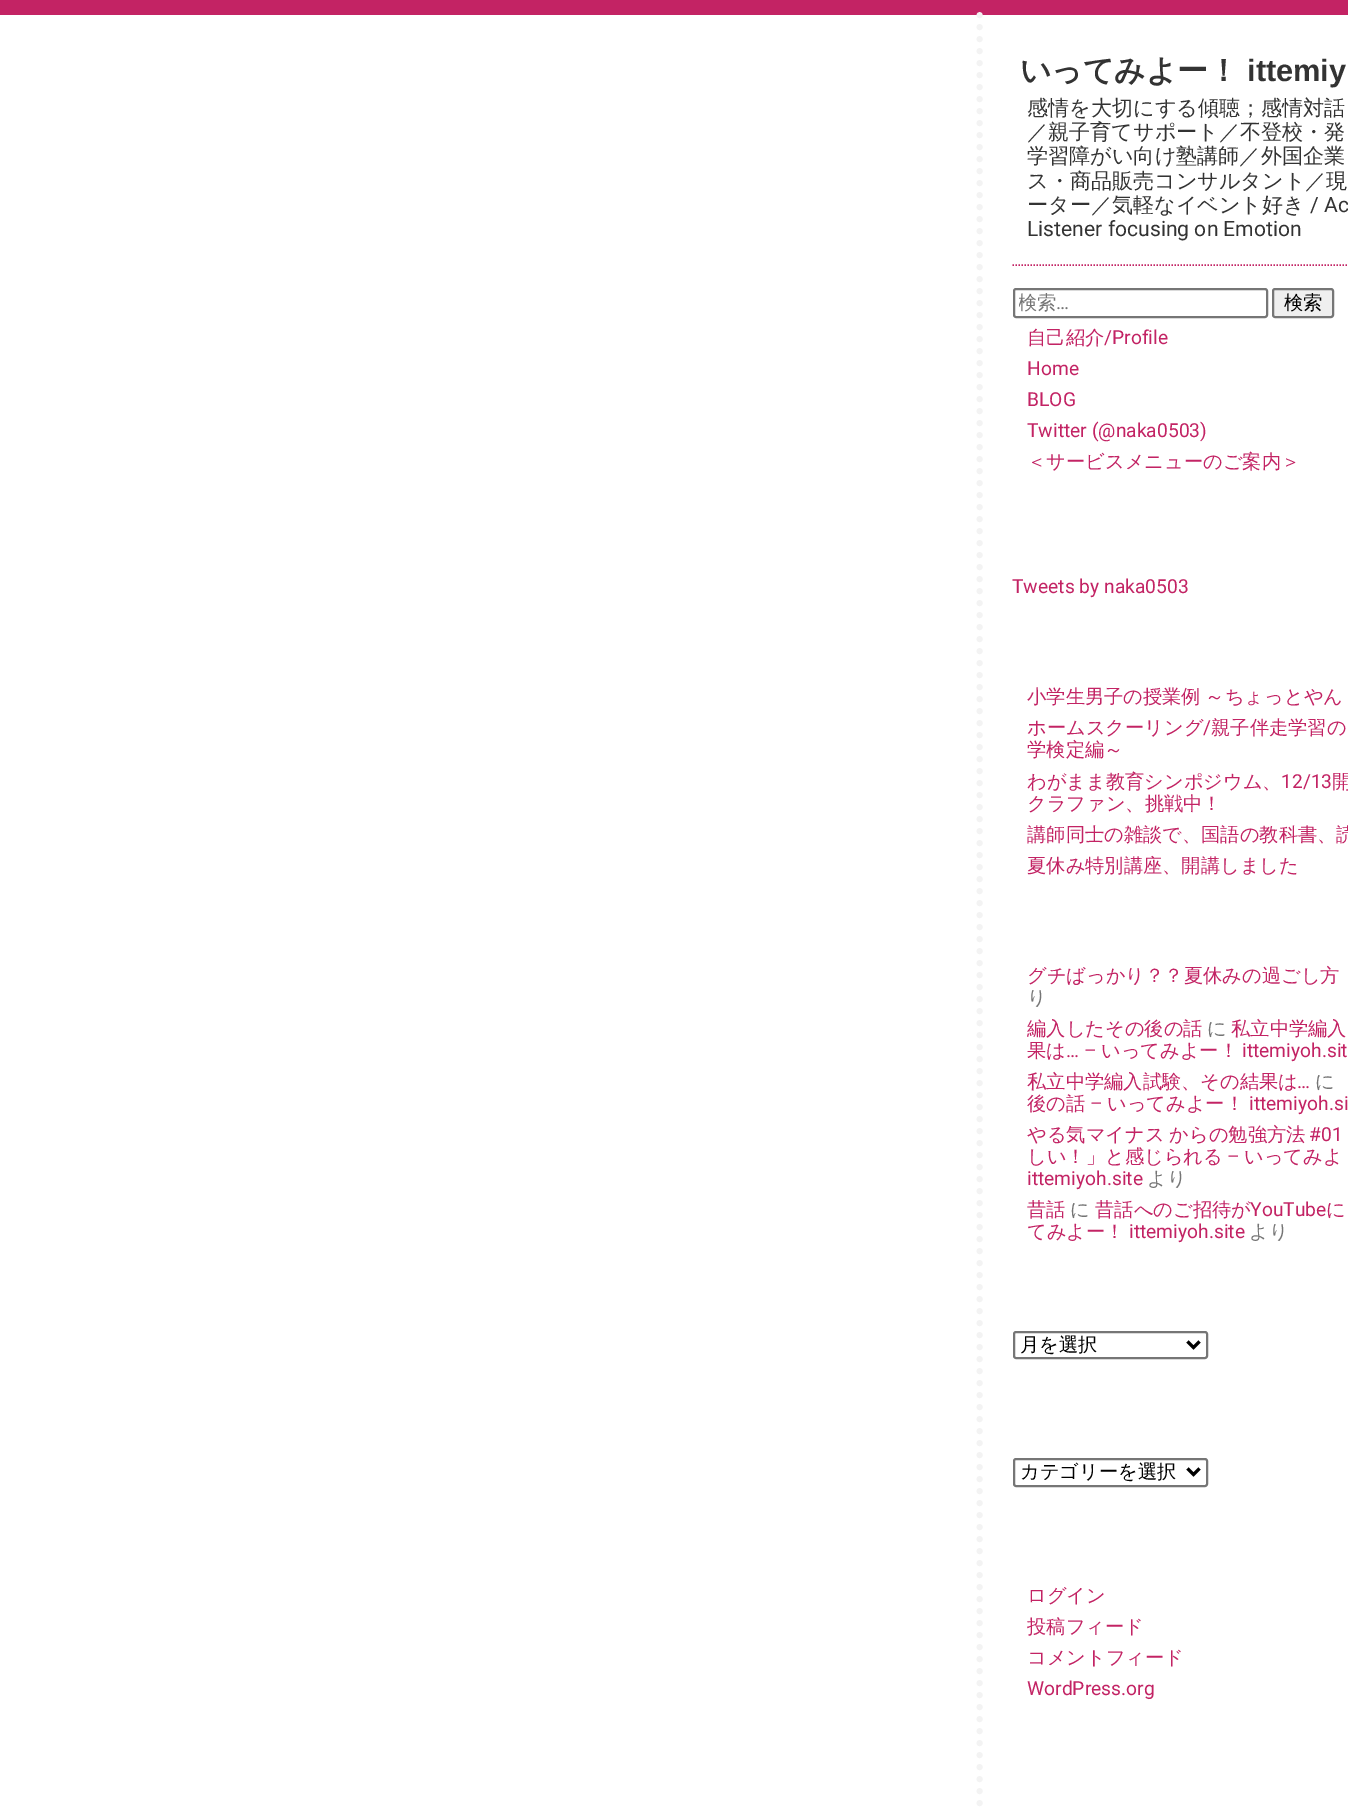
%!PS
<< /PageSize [1348 1810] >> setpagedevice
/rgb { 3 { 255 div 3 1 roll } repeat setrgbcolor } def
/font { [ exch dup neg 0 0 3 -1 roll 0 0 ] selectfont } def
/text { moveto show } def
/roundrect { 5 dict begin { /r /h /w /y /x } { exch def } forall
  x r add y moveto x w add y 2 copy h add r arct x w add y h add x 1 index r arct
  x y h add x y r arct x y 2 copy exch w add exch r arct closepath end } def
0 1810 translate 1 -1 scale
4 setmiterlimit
195 35 100 rgb
0 0 1348 1810 rectfill
255 255 255 rgb
0 15 1348 1795 rectfill
243 243 243 rgb
6 setlinewidth
1 setlinecap
[0 12] 0 setdash
979.5 15 moveto 0 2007 rlineto stroke
195 35 100 rgb
1.5 setlinewidth
0 setlinecap
[1.5 1.5] 0 setdash
1012.5 265 moveto 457.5 0 rlineto stroke
118 118 118 rgb
2 setlinewidth
[] 0 setdash
1014 289 253 28 2 roundrect stroke
239 239 239 rgb
1273 289 60 28 2 roundrect gsave fill grestore
118 118 118 rgb
stroke
1014 1332 193 26 2 roundrect stroke
0 0 0 rgb
3 setlinewidth
1187.5 1341.5 moveto 6 6 rlineto 6 -6 rlineto stroke
118 118 118 rgb
2 setlinewidth
1014 1459 193 27 2 roundrect stroke
0 0 0 rgb
3 setlinewidth
1187.5 1468.5 moveto 6 6 rlineto 6 -6 rlineto stroke
/WenQuanYiZenHei-Bold 30.75 font
51 51 51 rgb
(いってみよー！) 1020 81 text
/LiberationSans-Bold 30.75 font
(ittemiy) 1247 81 text
/WenQuanYiZenHei-Medium 21.1 font
(感情を大切にする傾聴；感情対話) 1027 115 text
(／親子育てサポート／不登校・発) 1027 139 text
(学習障がい向け塾講師／外国企業) 1027 163 text
(ス・商品販売コンサルタント／現) 1027 188 text
(ーター／気軽なイベント好き) 1027 212 text
/Roboto-Regular 21.1 font
(/ Ac) 1310 212 text
(Listener focusing on Emotion) 1027 236 text
gsave
1019 291 223 24 rectclip
/WenQuanYiZenHei-Medium 19.25 font
117 117 117 rgb
(検索) 1018 309 text
grestore
/Roboto-Regular 19.25 font
117 117 117 rgb
(…) 1056 309 text
/WenQuanYiZenHei-Medium 19.25 font
0 0 0 rgb
(検索) 1284 309 text
195 35 100 rgb
(自己紹介) 1027 344 text
/Roboto-Regular 19.25 font
(/Profile) 1104 344 text
(Home) 1027 375 text
(BLOG) 1027 406 text
(Twitter \(@naka0503\)) 1027 437 text
/WenQuanYiZenHei-Medium 19.25 font
(＜サービスメニューのご案内＞) 1027 468 text
/Roboto-Regular 19.25 font
(Tweets by naka0503) 1012 593 text
/WenQuanYiZenHei-Medium 19.25 font
1027 703 moveto -1 0 32 (小学生男子の授業例 ～ちょっとやん) widthshow
(ホームスクーリング) 1027 734 text
/Roboto-Regular 19.25 font
(/) 1203 734 text
/WenQuanYiZenHei-Medium 19.25 font
1211 734 moveto -1 0 32 (親子伴走学習の) widthshow
(学検定編～) 1027 756 text
(わがまま教育シンポジウム、) 1027 788 text
/Roboto-Regular 19.25 font
(12/13) 1281 788 text
/WenQuanYiZenHei-Medium 19.25 font
(開) 1332 788 text
(クラファン、挑戦中！) 1027 810 text
(講師同士の雑談で、国語の教科書、読) 1027 841 text
(夏休み特別講座、開講しました) 1027 872 text
(グチばっかり？？夏休みの過ごし方) 1027 982 text
117 117 117 rgb
(り) 1027 1004 text
195 35 100 rgb
(編入したその後の話) 1027 1035 text
117 117 117 rgb
(に) 1207 1035 text
195 35 100 rgb
(私立中学編入) 1231 1035 text
(果は) 1027 1057 text
/Roboto-Regular 19.25 font
(… –) 1066 1057 text
/WenQuanYiZenHei-Medium 19.25 font
(いってみよー！) 1101 1057 text
/Roboto-Regular 19.25 font
(ittemiyoh.sit) 1242 1057 text
/WenQuanYiZenHei-Medium 19.25 font
(私立中学編入試験、その結果は) 1027 1088 text
/Roboto-Regular 19.25 font
(…) 1297 1088 text
/WenQuanYiZenHei-Medium 19.25 font
117 117 117 rgb
(に) 1315 1088 text
195 35 100 rgb
(後の話) 1027 1110 text
/Roboto-Regular 19.25 font
(–) 1090 1110 text
/WenQuanYiZenHei-Medium 19.25 font
(いってみよー！) 1107 1110 text
/Roboto-Regular 19.25 font
(ittemiyoh.si) 1249 1110 text
/WenQuanYiZenHei-Medium 19.25 font
1027 1141 moveto -1 0 32 (やる気マイナス からの勉強方法) widthshow
/Roboto-Regular 19.25 font
(#01) 1309 1141 text
/WenQuanYiZenHei-Medium 19.25 font
(しい！」と感じられる) 1027 1163 text
/Roboto-Regular 19.25 font
(–) 1227 1163 text
/WenQuanYiZenHei-Medium 19.25 font
(いってみよ) 1244 1163 text
/Roboto-Regular 19.25 font
(ittemiyoh.site) 1027 1185 text
/WenQuanYiZenHei-Medium 19.25 font
117 117 117 rgb
(より) 1147 1185 text
195 35 100 rgb
(昔話) 1027 1216 text
117 117 117 rgb
(に) 1070 1216 text
195 35 100 rgb
(昔話へのご招待が) 1095 1216 text
/Roboto-Regular 19.25 font
(YouTube) 1250 1216 text
/WenQuanYiZenHei-Medium 19.25 font
(に) 1326 1216 text
(てみよー！) 1027 1238 text
/Roboto-Regular 19.25 font
(ittemiyoh.site) 1129 1238 text
/WenQuanYiZenHei-Medium 19.25 font
117 117 117 rgb
(より) 1249 1238 text
0 0 0 rgb
(月を選択) 1020 1351 text
(カテゴリーを選択) 1020 1478 text
195 35 100 rgb
(ログイン) 1027 1602 text
(投稿フィード) 1027 1633 text
(コメントフィード) 1027 1664 text
/Roboto-Regular 19.25 font
(WordPress.org) 1027 1695 text
showpage
